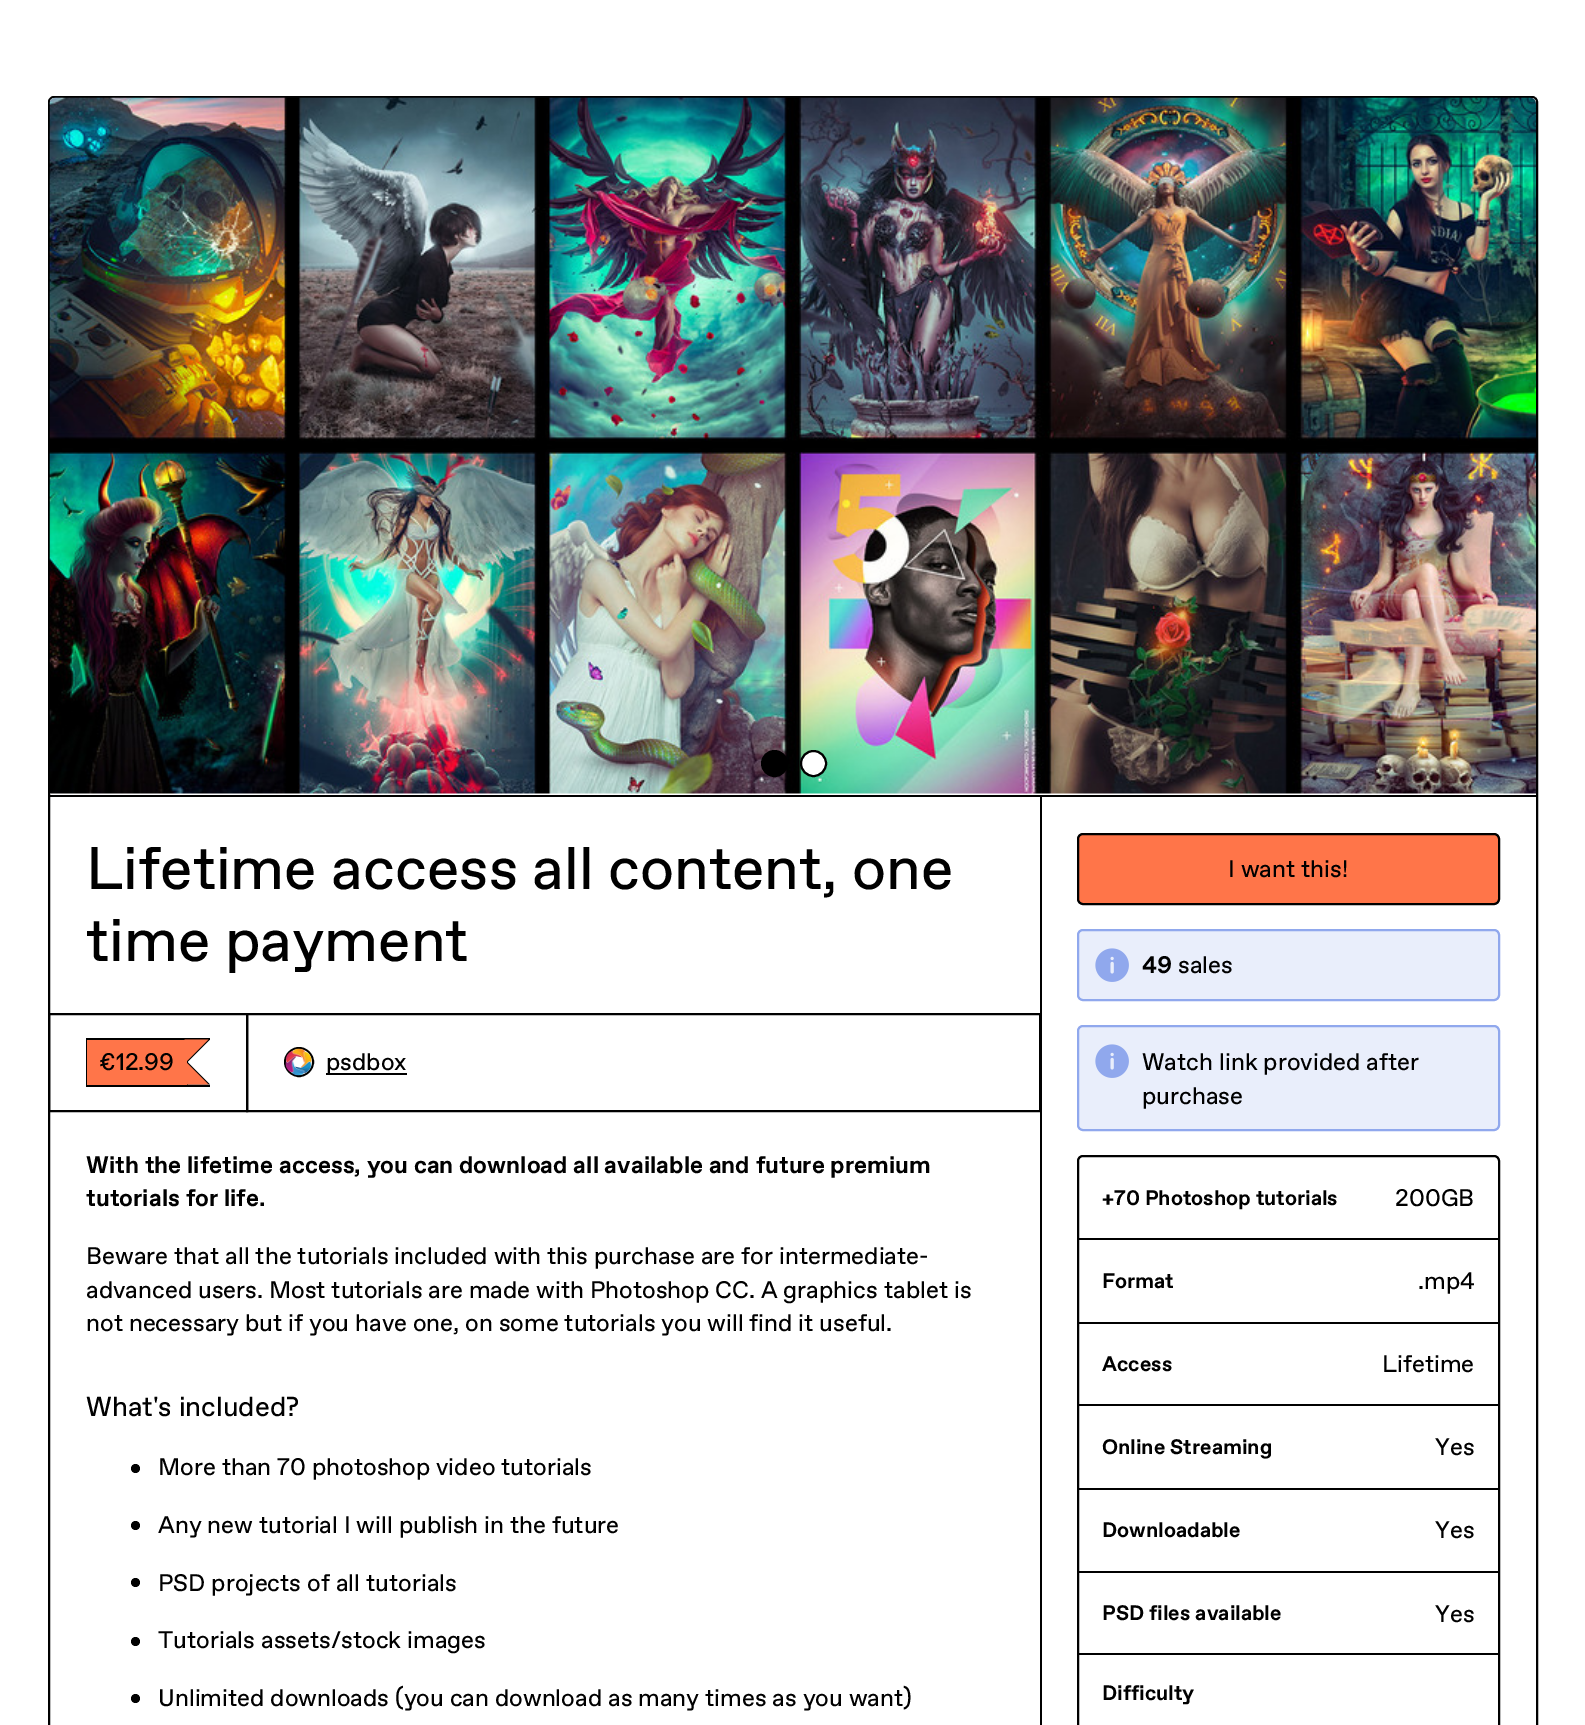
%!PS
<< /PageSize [1585 1725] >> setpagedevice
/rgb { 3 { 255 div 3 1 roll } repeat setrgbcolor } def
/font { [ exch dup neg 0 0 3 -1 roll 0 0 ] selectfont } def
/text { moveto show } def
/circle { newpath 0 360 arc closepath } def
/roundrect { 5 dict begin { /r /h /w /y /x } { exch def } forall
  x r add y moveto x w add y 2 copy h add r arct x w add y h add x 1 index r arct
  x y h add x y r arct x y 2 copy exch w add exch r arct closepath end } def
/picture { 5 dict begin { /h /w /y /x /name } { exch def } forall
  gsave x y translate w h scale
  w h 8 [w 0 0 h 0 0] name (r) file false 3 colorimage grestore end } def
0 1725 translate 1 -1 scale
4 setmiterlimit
255 255 255 rgb
0 0 1585 1725 rectfill
0 0 0 rgb
2 setlinewidth
49 97 1488 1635 5 roundrect stroke
50 795 1486 2 rectfill
(img_01.rgb) 49 97 1487 697 picture
774.5 763.5 12.5 circle gsave fill grestore
stroke
255 255 255 rgb
813.5 763.5 12.5 circle gsave fill grestore
0 0 0 rgb
stroke
1040 797 2 928 rectfill
49 1014 198 97 rectstroke
86 1038 124 2 rectfill
86 1085 124 2 rectfill
86 1038 2 48 rectfill
255 117 73 rgb
87 1040 98 45 rectfill
0 0 0 rgb
186 1039.5 moveto 24 0 rlineto -22.5 22.5 rlineto closepath 210 1084.5 moveto -24 0 rlineto 1.5 -22.5 rlineto closepath fill
187 1060 1 25 rectfill
255 117 73 rgb
184.5 1039.5 moveto 24 0 rlineto -22.5 22.5 rlineto closepath 208.5 1084.5 moveto -24 0 rlineto 1.5 -22.5 rlineto closepath fill
185 1040 2 45 rectfill
0 0 0 rgb
247 1014 793 97 rectstroke
299 1062 14 circle stroke
(img_02.rgb) 285 1048 27 28 picture
326 1073 81 2 rectfill
135.5 1468.5 4.5 circle fill
135.5 1525.5 4.5 circle fill
135.5 1582.5 4.5 circle fill
135.5 1641.5 4.5 circle fill
135.5 1698.5 4.5 circle fill
255 117 73 rgb
1078 834 421 70 5 roundrect gsave fill grestore
0 0 0 rgb
stroke
233 238 251 rgb
1078 930 421 70 5 roundrect gsave fill grestore
144 168 237 rgb
stroke
(img_03.rgb) 1095 948 34 34 picture
233 238 251 rgb
1078 1026 421 104 5 roundrect gsave fill grestore
144 168 237 rgb
stroke
(img_03.rgb) 1095 1044 34 34 picture
0 0 0 rgb
1078 1156 421 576 5 roundrect stroke
1079 1238 420 2 rectfill
1079 1322 420 2 rectfill
1079 1404 420 2 rectfill
1079 1488 420 2 rectfill
1079 1571 420 2 rectfill
1079 1653 420 2 rectfill
/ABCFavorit-Regular 60 font
(Lifetime access all content, one) 86 889 text
(time payment) 86 961 text
/ABCFavorit-Regular 24 font
(€12.99) 99 1070 text
(psdbox) 326 1070 text
/ABCFavorit-Bold 24 font
(With the lifetime access, you can download all available and future premium) 86 1173 text
(tutorials for life.) 86 1206 text
/ABCFavorit-Regular 24 font
(Beware that all the tutorials included with this purchase are for intermediate-) 86 1264 text
(advanced users. Most tutorials are made with Photoshop CC. A graphics tablet is) 86 1298 text
(not necessary but if you have one, on some tutorials you will find it useful.) 86 1331 text
/ABCFavorit-Regular 27.5 font
(What's included?) 86 1416 text
/ABCFavorit-Regular 24 font
(More than 70 photoshop video tutorials) 158 1475 text
(Any new tutorial I will publish in the future) 158 1533 text
(PSD projects of all tutorials) 158 1591 text
(Tutorials assets/stock images) 158 1648 text
(Unlimited downloads \(you can download as many times as you want\)) 158 1706 text
(I want this!) 1228 877 text
/ABCFavorit-Bold 24 font
(49) 1142 973 text
/ABCFavorit-Regular 24 font
(sales) 1178 973 text
(Watch link provided after) 1142 1070 text
(purchase) 1142 1104 text
/ABCFavorit-Bold 21 font
(+70 Photoshop tutorials) 1102 1205 text
/ABCFavorit-Regular 24 font
(200GB) 1395 1206 text
/ABCFavorit-Bold 21 font
(Format) 1102 1288 text
/ABCFavorit-Regular 24 font
(.mp4) 1418 1289 text
/ABCFavorit-Bold 21 font
(Access) 1102 1371 text
/ABCFavorit-Regular 24 font
(Lifetime) 1382 1372 text
/ABCFavorit-Bold 21 font
(Online Streaming) 1102 1454 text
/ABCFavorit-Regular 24 font
(Yes) 1435 1455 text
/ABCFavorit-Bold 21 font
(Downloadable) 1102 1537 text
/ABCFavorit-Regular 24 font
(Yes) 1435 1538 text
/ABCFavorit-Bold 21 font
(PSD files available) 1102 1620 text
/ABCFavorit-Regular 24 font
(Yes) 1435 1622 text
/ABCFavorit-Bold 21 font
(Difficulty) 1102 1700 text
showpage
